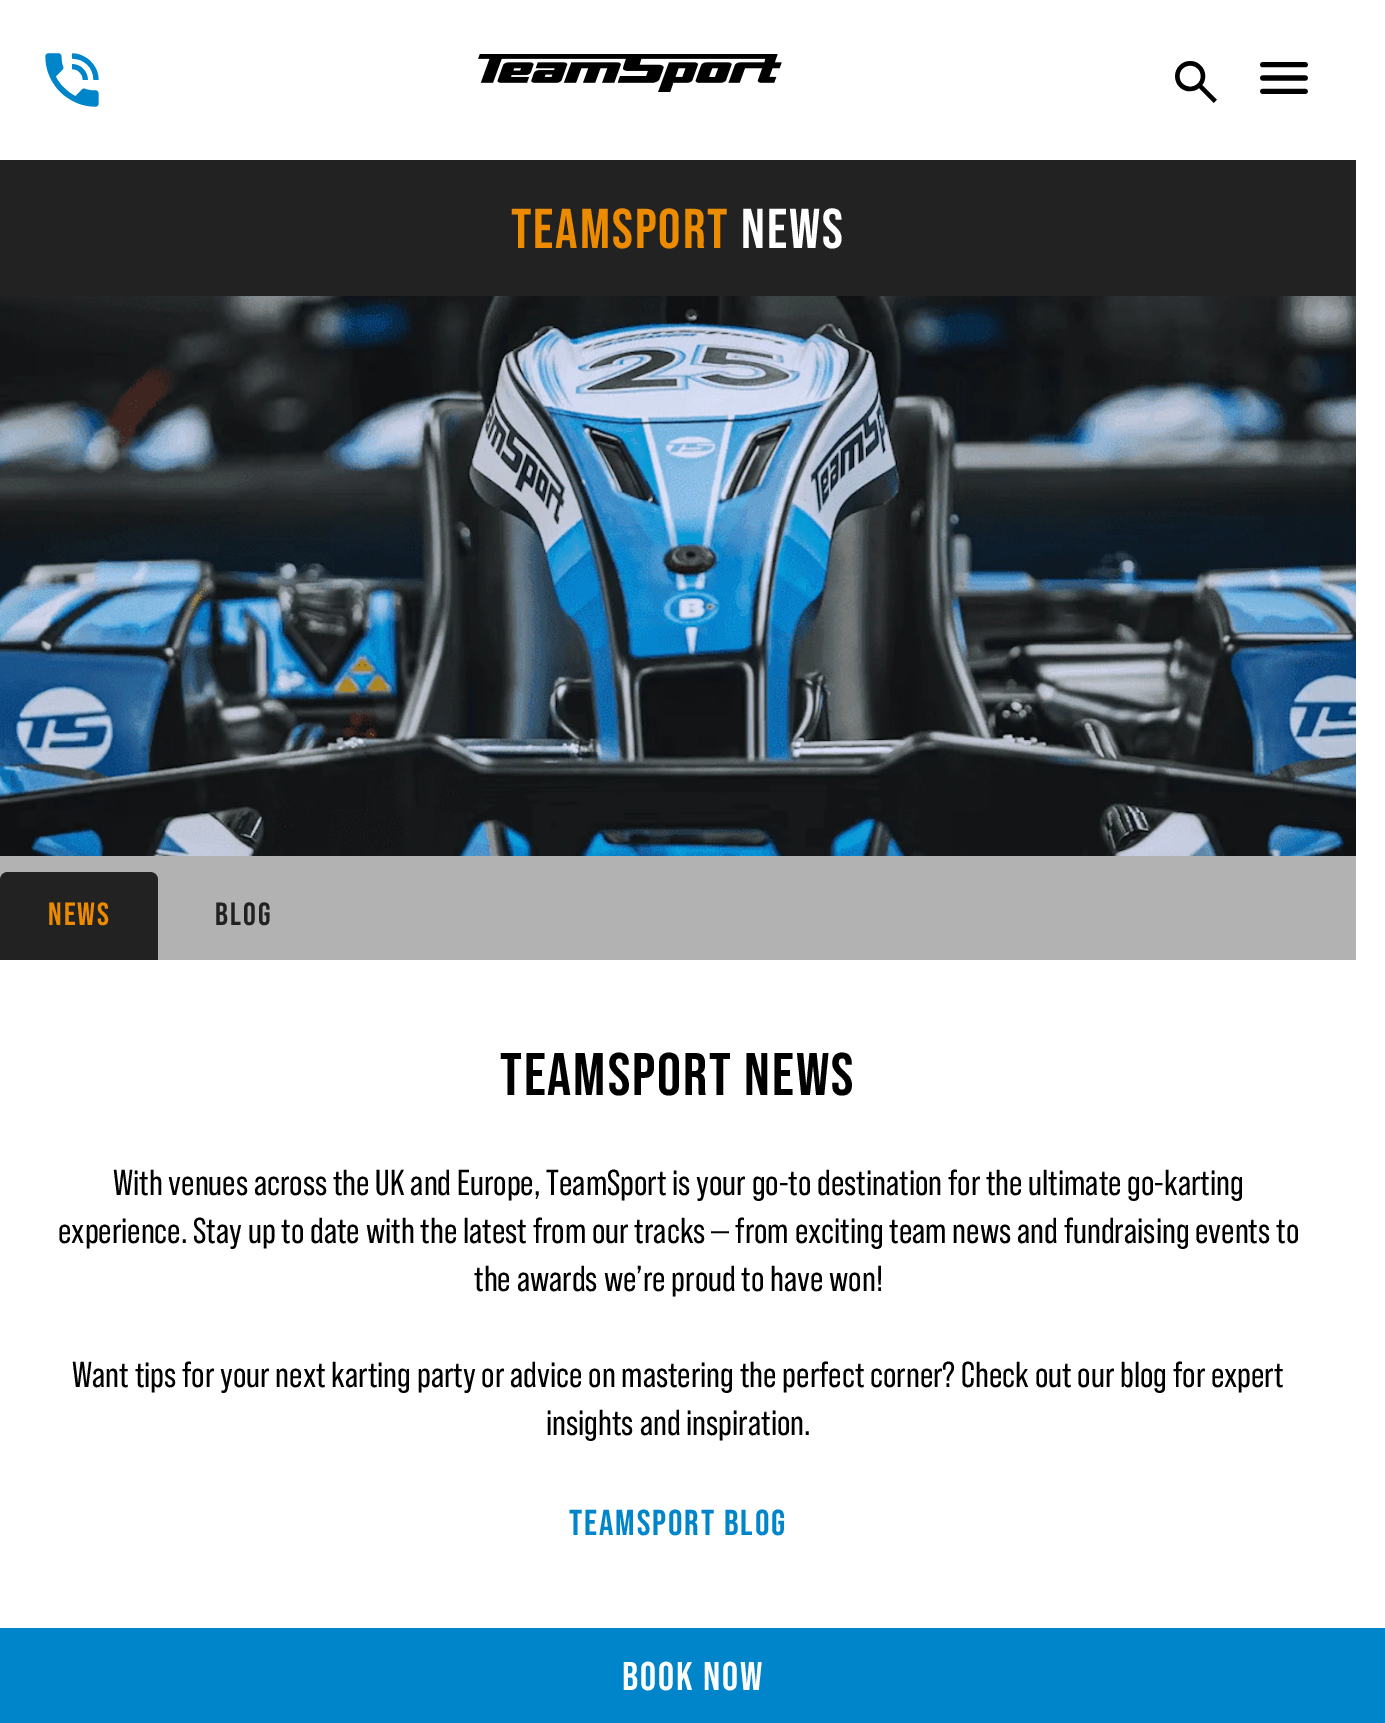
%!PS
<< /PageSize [1385 1723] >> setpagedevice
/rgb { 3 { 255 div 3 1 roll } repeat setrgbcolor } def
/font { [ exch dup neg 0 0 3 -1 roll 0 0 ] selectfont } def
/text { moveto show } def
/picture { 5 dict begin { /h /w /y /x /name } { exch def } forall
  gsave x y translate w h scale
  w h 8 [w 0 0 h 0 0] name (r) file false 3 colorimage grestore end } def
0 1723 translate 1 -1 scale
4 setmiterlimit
255 255 255 rgb
0 0 1385 1723 rectfill
(img_01.rgb) 45 53 54 54 picture
(img_02.rgb) 478 54 304 38 picture
(img_03.rgb) 1175 61 42 42 picture
(img_04.rgb) 1260 62 48 32 picture
34 34 35 rgb
0 160 1356 136 rectfill
(img_05.rgb) 0 296 1356 560 picture
178 178 178 rgb
0 856 1356 104 rectfill
34 34 35 rgb
8 872 moveto 142 0 rlineto 4.5 0 8 3.5 8 8 rcurveto 0 80 rlineto -158 0 rlineto 0 -80 rlineto 0 -4.5 3.5 -8 8 -8 rcurveto closepath fill
0 133 202 rgb
0 1628 1385 95 rectfill
/BebasNeue-Bold 56 font
237 139 0 rgb
511 248 moveto 2 0 (TEAMSPORT) ashow
255 255 255 rgb
741 248 moveto 2 0 (NEWS) ashow
/BebasNeue-Bold 32 font
237 139 0 rgb
48 925 moveto 2 0 (NEWS) ashow
34 34 35 rgb
215 925 moveto 2 0 (BLOG) ashow
/BebasNeue-Bold 60 font
0 0 0 rgb
500 1095 moveto 2 0 (TEAMSPORT NEWS) ashow
/BebasNeue-Regular 36 font
(With venues across the UK and Europe, TeamSport is your go-to destination for the ultimate go-karting) 113 1195 text
(experience. Stay up to date with the latest from our tracks — from exciting team news and fundraising events to) 58 1243 text
(the awards we’re proud to have won!) 474 1291 text
(Want tips for your next karting party or advice on mastering the perfect corner? Check out our blog for expert) 72 1387 text
(insights and inspiration.) 546 1435 text
/BebasNeue-Bold 36 font
0 133 202 rgb
569 1535 moveto 2 0 (TEAMSPORT BLOG) ashow
/BebasNeue-Bold 40 font
255 255 255 rgb
622 1690 moveto 2 0 (BOOK NOW) ashow
showpage
